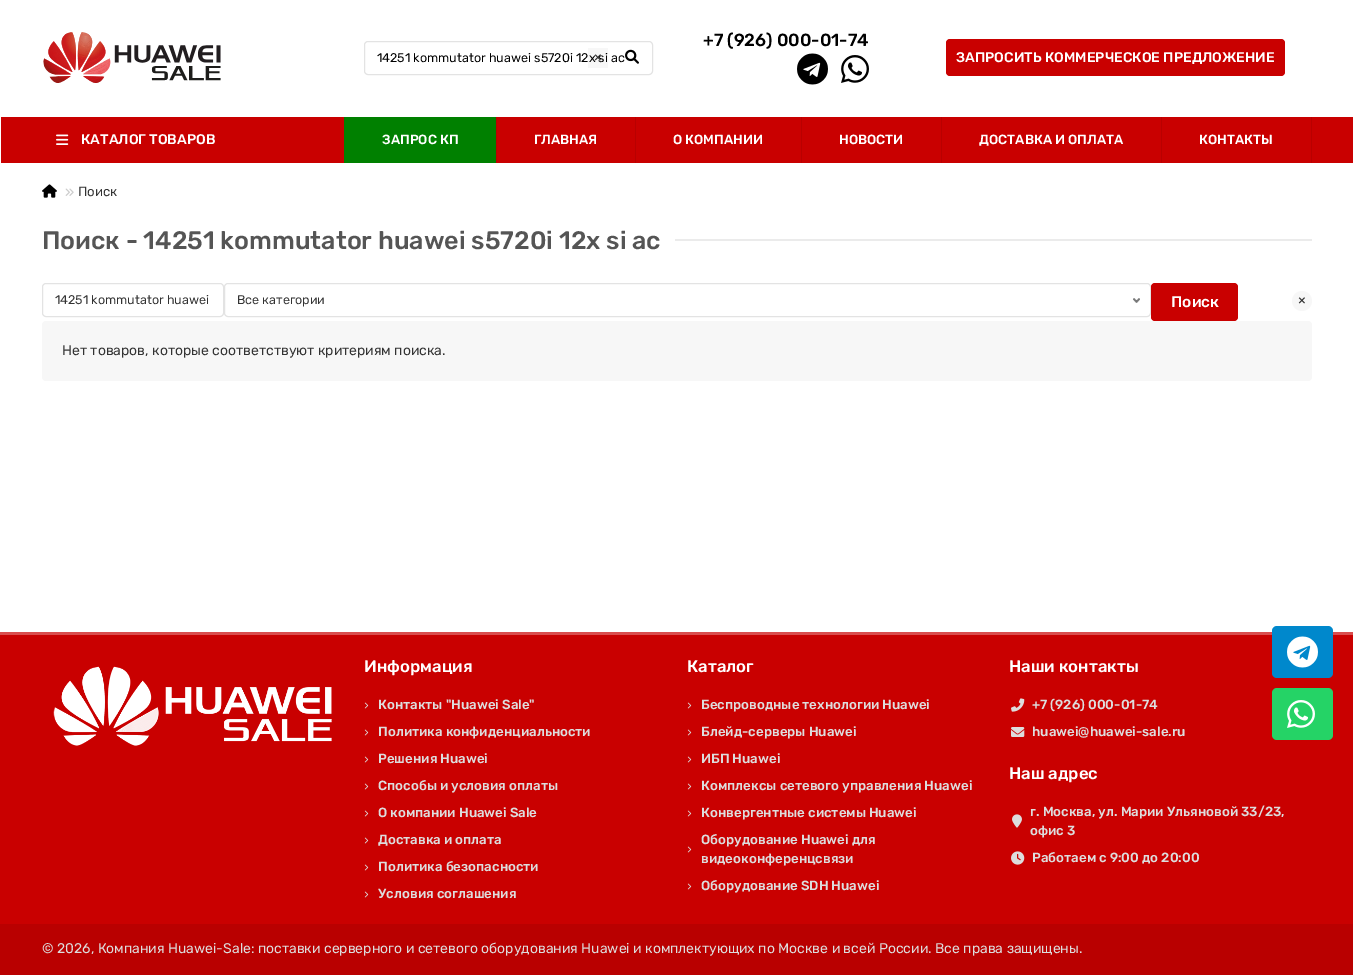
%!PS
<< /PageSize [1353 975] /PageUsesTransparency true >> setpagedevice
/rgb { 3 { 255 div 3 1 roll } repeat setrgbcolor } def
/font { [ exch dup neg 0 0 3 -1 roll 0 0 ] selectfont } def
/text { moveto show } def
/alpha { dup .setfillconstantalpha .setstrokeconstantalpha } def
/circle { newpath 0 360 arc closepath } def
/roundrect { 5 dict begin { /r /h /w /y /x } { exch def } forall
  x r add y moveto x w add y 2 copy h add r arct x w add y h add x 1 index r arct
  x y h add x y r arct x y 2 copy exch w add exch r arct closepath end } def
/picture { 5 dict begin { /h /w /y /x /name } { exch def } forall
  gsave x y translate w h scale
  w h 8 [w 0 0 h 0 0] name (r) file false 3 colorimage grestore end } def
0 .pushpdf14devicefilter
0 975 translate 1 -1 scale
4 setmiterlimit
255 255 255 rgb
0 0 1353 975 rectfill
(img_01.rgb) 43 32 178 51 picture
(img_02.rgb) 797 53 31 32 picture
(img_03.rgb) 841 55 28 28 picture
227 227 227 rgb
364.5 41.5 288 33 3.5 roundrect stroke
(img_04.rgb) 625 49 14 15 picture
0.03 alpha
0 0 0 rgb
588 48 20 20 rectfill
1 alpha
201 0 0 rgb
946 39 339 37 4 roundrect fill
1 117 1352 46 rectfill
(img_05.rgb) 56 134 13 11 picture
0 128 0 rgb
344 117 152 46 rectfill
185 0 0 rgb
496 117 1 46 rectfill
635 117 1 46 rectfill
801 117 1 46 rectfill
941 117 1 46 rectfill
1161 117 1 46 rectfill
1311 117 1 46 rectfill
(img_06.rgb) 42 184 15 14 picture
(img_07.rgb) 65 188 9 8 picture
235 235 235 rgb
675 239 637 2 rectfill
227 227 227 rgb
42.5 283.5 181 33 3.5 roundrect stroke
247 247 247 rgb
1302 301 10 circle fill
(img_08.rgb) 1133 298 7 5 picture
227 227 227 rgb
224.5 283.5 926 33 3.5 roundrect stroke
201 0 0 rgb
1151 283 87 38 4 roundrect fill
247 247 247 rgb
42 321 1270 60 4 roundrect fill
201 0 0 rgb
0 635 1353 289 rectfill
217 77 77 rgb
0 632 1353 3 rectfill
(img_09.rgb) 53 666 279 80 picture
(img_10.rgb) 364 702 5 7 picture
(img_10.rgb) 364 729 5 7 picture
(img_10.rgb) 364 756 5 7 picture
(img_10.rgb) 364 783 5 7 picture
(img_10.rgb) 364 810 5 7 picture
(img_10.rgb) 364 837 5 7 picture
(img_10.rgb) 364 864 5 7 picture
(img_10.rgb) 364 891 5 7 picture
(img_10.rgb) 687 702 5 7 picture
(img_10.rgb) 687 729 5 7 picture
(img_10.rgb) 687 756 5 7 picture
(img_10.rgb) 687 783 5 7 picture
(img_10.rgb) 687 810 5 7 picture
(img_10.rgb) 687 846 5 7 picture
(img_10.rgb) 687 883 5 7 picture
(img_11.rgb) 1011 698 14 14 picture
(img_12.rgb) 1011 727 14 10 picture
(img_13.rgb) 1012 814 10 14 picture
(img_14.rgb) 1011 851 14 14 picture
185 0 0 rgb
0 924 1353 51 rectfill
0 136 204 rgb
1272 626 61 52 5 roundrect fill
(img_15.rgb) 1287 636 31 32 picture
37 211 102 rgb
1272 688 61 52 5 roundrect fill
(img_16.rgb) 1287 700 28 28 picture
/Rubik-Medium 17.5 font
0 0 0 rgb
(+7 \(926\) 000-01-74) 703 46 text
/Rubik-Regular 12.6 font
(14251 kommutator huawei s5720i 12x si ac) 377 62 text
/Rubik-Regular 14 font
51 51 51 rgb
(×) 594 62 text
/Rubik-Medium 14 font
255 255 255 rgb
(ЗАПРОСИТЬ КОММЕРЧЕСКОЕ ПРЕДЛОЖЕНИЕ) 956 62 text
(КАТАЛОГ ТОВАРОВ) 81 144 text
/Rubik-Medium 13.3 font
(ЗАПРОС КП) 382 144 text
(ГЛАВНАЯ) 534 144 text
(О КОМПАНИИ) 673 144 text
(НОВОСТИ) 839 144 text
(ДОСТАВКА И ОПЛАТА) 979 144 text
(КОНТАКТЫ) 1199 144 text
/Rubik-Regular 13.3 font
51 51 51 rgb
(Поиск) 78 196 text
/Rubik-Medium 25.2 font
85 85 85 rgb
(Поиск - 14251 kommutator huawei s5720i 12x si ac) 42 249 text
/Rubik-Regular 12.6 font
51 51 51 rgb
(14251 kommutator huawei) 55 304 text
/Rubik-Regular 14 font
(×) 1298 305 text
/Rubik-Regular 12.6 font
(Все категории) 237 304 text
/Rubik-Medium 15.5 font
255 255 255 rgb
(Поиск) 1171 307 text
/Rubik-Regular 14 font
51 51 51 rgb
(Нет товаров, которые соответствуют критериям поиска.) 62 355 text
/Rubik-Medium 16.75 font
255 255 255 rgb
(Информация) 364 672 text
/Rubik-Medium 13.3 font
221 221 221 rgb
(Контакты "Huawei Sale") 378 709 text
(Политика конфиденциальности) 378 736 text
(Решения Huawei) 378 763 text
(Способы и условия оплаты) 378 790 text
(О компании Huawei Sale) 378 817 text
(Доставка и оплата) 378 844 text
(Политика безопасности) 378 871 text
(Условия соглашения) 378 898 text
/Rubik-Medium 16.75 font
255 255 255 rgb
(Каталог) 687 672 text
/Rubik-Medium 13.3 font
221 221 221 rgb
(Беспроводные технологии Huawei) 701 709 text
(Блейд-серверы Huawei) 701 736 text
(ИБП Huawei) 701 763 text
(Комплексы сетевого управления Huawei) 701 790 text
(Конвергентные системы Huawei) 701 817 text
(Оборудование Huawei для) 701 844 text
(видеоконференцсвязи) 701 863 text
(Оборудование SDH Huawei) 701 890 text
/Rubik-Medium 16.75 font
255 255 255 rgb
(Наши контакты) 1009 672 text
/Rubik-Medium 13.3 font
221 221 221 rgb
(+7 \(926\) 000-01-74) 1032 709 text
(huawei@huawei-sale.ru) 1032 736 text
/Rubik-Medium 16.75 font
255 255 255 rgb
(Наш адрес) 1009 779 text
/Rubik-Medium 13.3 font
221 221 221 rgb
(г. Москва, ул. Марии Ульяновой 33/23,) 1030 816 text
(офис 3) 1030 835 text
(Работаем с 9:00 до 20:00) 1032 862 text
/Rubik-Regular 14 font
(© 2026, Компания Huawei-Sale: поставки серверного и сетевого оборудования Huawei и комплектующих по Москве и всей России. Все права защищены.) 42 953 text
.poppdf14devicefilter showpage
